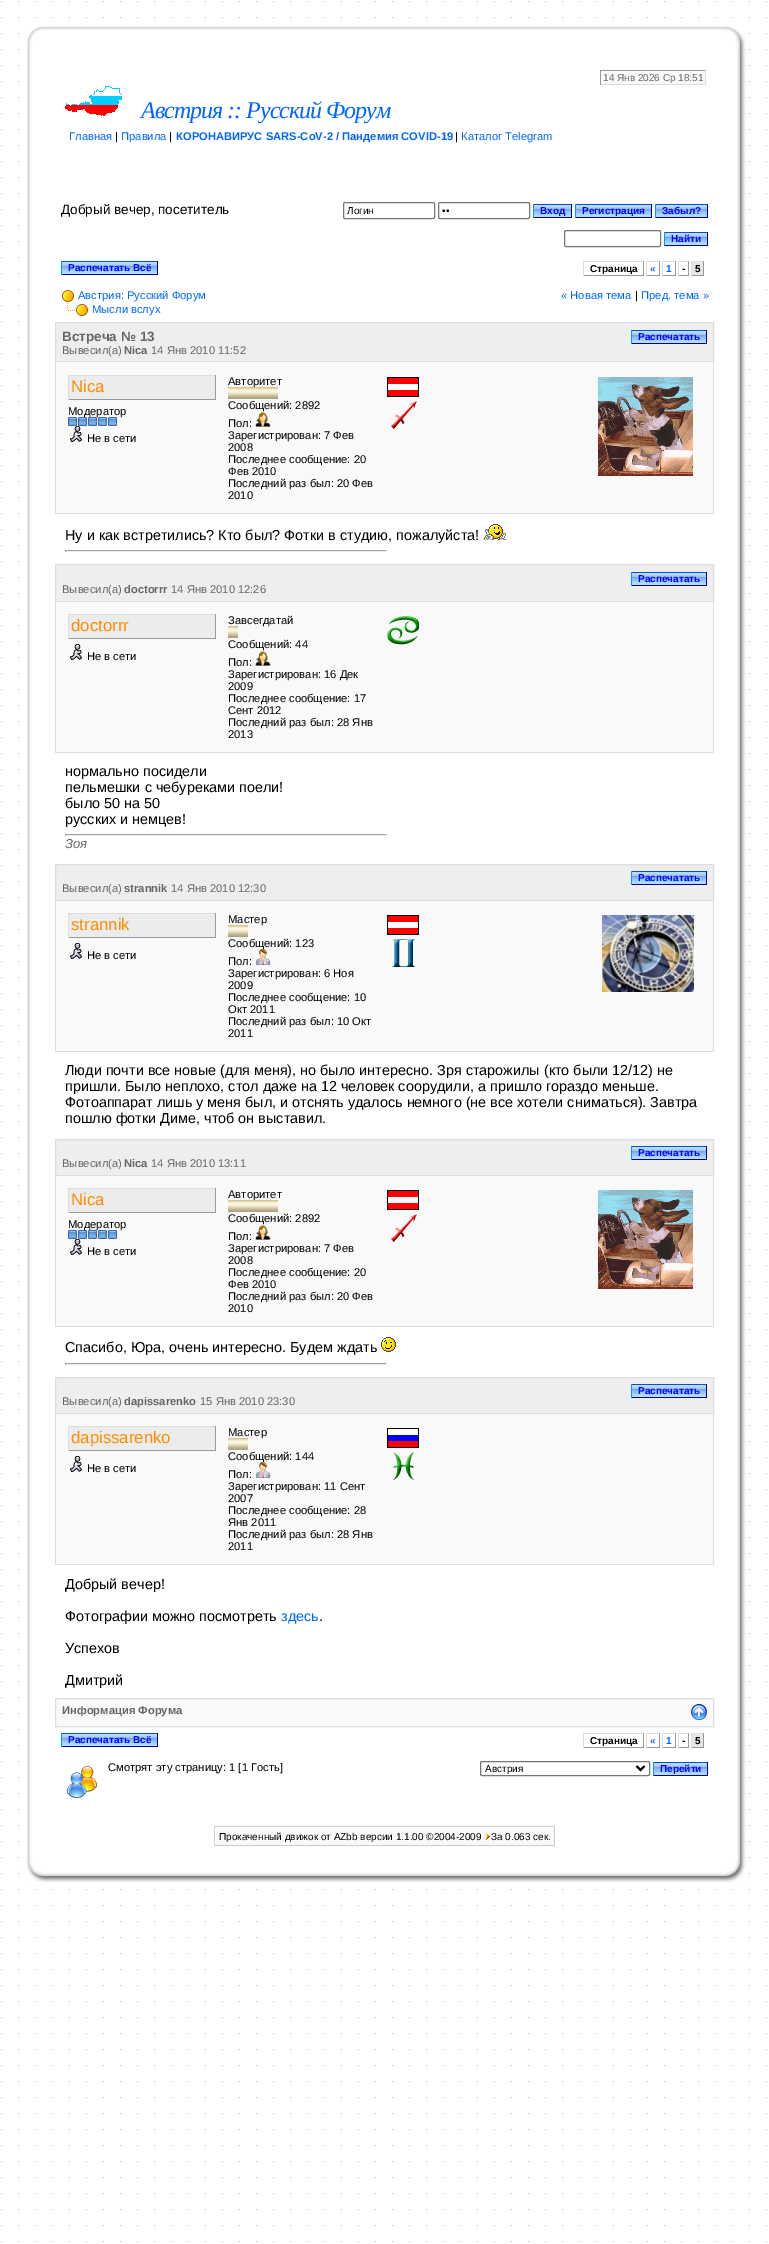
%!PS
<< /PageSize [769 2244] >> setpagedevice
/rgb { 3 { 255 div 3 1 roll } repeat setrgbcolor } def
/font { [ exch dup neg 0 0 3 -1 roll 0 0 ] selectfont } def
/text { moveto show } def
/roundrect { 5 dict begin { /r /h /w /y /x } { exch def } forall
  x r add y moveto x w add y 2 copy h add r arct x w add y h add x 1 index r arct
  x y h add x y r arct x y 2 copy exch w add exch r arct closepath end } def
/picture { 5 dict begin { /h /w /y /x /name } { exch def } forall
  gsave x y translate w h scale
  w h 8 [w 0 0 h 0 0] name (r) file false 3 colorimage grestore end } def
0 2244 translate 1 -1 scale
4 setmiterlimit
255 255 255 rgb
0 0 769 2244 rectfill
(img_01.rgb) 1 1 766 2241 picture
(img_02.rgb) 42 26 683 24 picture
(img_03.rgb) 20 26 22 28 picture
(img_04.rgb) 725 26 24 28 picture
(img_05.rgb) 26 54 10 1804 picture
52 65 681 1793 rectfill
(img_06.rgb) 737 54 9 1804 picture
249 249 249 rgb
601 71 104 13 rectfill
153 153 153 rgb
600 70 106 1 rectfill
221 221 221 rgb
705 70 1 15 rectfill
600 84 106 1 rectfill
153 153 153 rgb
600 70 1 15 rectfill
(img_07.rgb) 65 86 57 30 picture
118 118 118 rgb
343.5 202.5 91 16 1.5 roundrect stroke
438.5 202.5 91 16 1.5 roundrect stroke
(img_08.rgb) 534 204 37 13 picture
0 0 153 rgb
571 204 1 14 rectfill
533 217 39 1 rectfill
0 153 255 rgb
533 204 1 14 rectfill
(img_09.rgb) 576 204 75 13 picture
0 0 153 rgb
651 204 1 14 rectfill
575 217 77 1 rectfill
0 153 255 rgb
575 204 1 14 rectfill
(img_10.rgb) 656 204 51 13 picture
0 0 153 rgb
707 204 1 14 rectfill
655 217 53 1 rectfill
0 153 255 rgb
655 204 1 14 rectfill
118 118 118 rgb
564.5 230.5 96 16 1.5 roundrect stroke
(img_11.rgb) 665 232 42 13 picture
0 0 153 rgb
707 232 1 14 rectfill
664 245 44 1 rectfill
0 153 255 rgb
664 232 1 14 rectfill
(img_12.rgb) 62 261 95 13 picture
0 0 153 rgb
157 261 1 14 rectfill
61 274 97 1 rectfill
0 153 255 rgb
61 261 1 14 rectfill
221 221 221 rgb
583 261 61 1 rectfill
153 153 153 rgb
643 261 1 15 rectfill
583 275 61 1 rectfill
221 221 221 rgb
583 261 1 15 rectfill
646 261 14 1 rectfill
153 153 153 rgb
659 261 1 15 rectfill
646 275 14 1 rectfill
221 221 221 rgb
646 261 1 15 rectfill
662 261 14 1 rectfill
153 153 153 rgb
675 261 1 15 rectfill
662 275 14 1 rectfill
221 221 221 rgb
662 261 1 15 rectfill
678 261 11 1 rectfill
153 153 153 rgb
688 261 1 15 rectfill
678 275 11 1 rectfill
221 221 221 rgb
678 261 1 15 rectfill
230 230 230 rgb
692 262 11 13 rectfill
221 221 221 rgb
691 261 13 1 rectfill
153 153 153 rgb
703 261 1 15 rectfill
691 275 13 1 rectfill
221 221 221 rgb
691 261 1 15 rectfill
(img_13.rgb) 62 290 12 12 picture
(img_14.rgb) 67 303 21 13 picture
238 238 238 rgb
55.5 322.5 moveto 658 0 rlineto 0 39 rlineto -658 0 rlineto closepath gsave fill grestore
221 221 221 rgb
stroke
(img_15.rgb) 632 330 74 13 picture
0 0 153 rgb
706 330 1 14 rectfill
631 343 76 1 rectfill
0 153 255 rgb
631 330 1 14 rectfill
249 249 249 rgb
56 362 657 151 rectfill
221 221 221 rgb
713 362 1 152 rectfill
55 513 659 1 rectfill
55 362 1 152 rectfill
236 236 236 rgb
69 376 146 23 rectfill
221 221 221 rgb
68 375 148 1 rectfill
153 153 153 rgb
215 375 1 25 rectfill
68 399 148 1 rectfill
221 221 221 rgb
68 375 1 25 rectfill
(img_17.rgb) 70 426 12 16 picture
(img_19.rgb) 255 412 16 15 picture
(img_20.rgb) 387 377 32 20 picture
(img_21.rgb) 391 401 26 28 picture
(img_22.rgb) 598 377 95 99 picture
(img_23.rgb) 484 524 22 16 picture
159 159 159 rgb
65 550 322 1 rectfill
238 238 238 rgb
386 550 1 2 rectfill
65 551 322 1 rectfill
159 159 159 rgb
65 550 1 2 rectfill
238 238 238 rgb
55.5 564.5 moveto 658 0 rlineto 0 37 rlineto -658 0 rlineto closepath gsave fill grestore
221 221 221 rgb
stroke
(img_15.rgb) 632 572 74 13 picture
0 0 153 rgb
706 572 1 14 rectfill
631 585 76 1 rectfill
0 153 255 rgb
631 572 1 14 rectfill
249 249 249 rgb
56 602 657 150 rectfill
221 221 221 rgb
713 602 1 151 rectfill
55 752 659 1 rectfill
55 602 1 151 rectfill
236 236 236 rgb
69 615 146 23 rectfill
221 221 221 rgb
68 614 148 1 rectfill
153 153 153 rgb
215 614 1 25 rectfill
68 638 148 1 rectfill
221 221 221 rgb
68 614 1 25 rectfill
(img_17.rgb) 70 644 12 16 picture
(img_19.rgb) 255 651 16 15 picture
(img_24.rgb) 387 616 32 29 picture
159 159 159 rgb
65 834 322 1 rectfill
238 238 238 rgb
386 834 1 2 rectfill
65 835 322 1 rectfill
159 159 159 rgb
65 834 1 2 rectfill
238 238 238 rgb
55.5 864.5 moveto 658 0 rlineto 0 36 rlineto -658 0 rlineto closepath gsave fill grestore
221 221 221 rgb
stroke
(img_15.rgb) 632 871 74 13 picture
0 0 153 rgb
706 871 1 14 rectfill
631 884 76 1 rectfill
0 153 255 rgb
631 871 1 14 rectfill
249 249 249 rgb
56 901 657 150 rectfill
221 221 221 rgb
713 901 1 151 rectfill
55 1051 659 1 rectfill
55 901 1 151 rectfill
236 236 236 rgb
69 914 146 23 rectfill
221 221 221 rgb
68 913 148 1 rectfill
153 153 153 rgb
215 913 1 25 rectfill
68 937 148 1 rectfill
221 221 221 rgb
68 913 1 25 rectfill
(img_17.rgb) 70 943 12 16 picture
(img_20.rgb) 387 915 32 20 picture
(img_26.rgb) 392 939 24 28 picture
(img_27.rgb) 602 915 92 77 picture
238 238 238 rgb
55.5 1139.5 moveto 658 0 rlineto 0 36 rlineto -658 0 rlineto closepath gsave fill grestore
221 221 221 rgb
stroke
(img_15.rgb) 632 1146 74 13 picture
0 0 153 rgb
706 1146 1 14 rectfill
631 1159 76 1 rectfill
0 153 255 rgb
631 1146 1 14 rectfill
249 249 249 rgb
56 1176 657 150 rectfill
221 221 221 rgb
713 1176 1 151 rectfill
55 1326 659 1 rectfill
55 1176 1 151 rectfill
236 236 236 rgb
69 1189 146 23 rectfill
221 221 221 rgb
68 1188 148 1 rectfill
153 153 153 rgb
215 1188 1 25 rectfill
68 1212 148 1 rectfill
221 221 221 rgb
68 1188 1 25 rectfill
(img_17.rgb) 70 1239 12 16 picture
(img_19.rgb) 255 1225 16 15 picture
(img_20.rgb) 387 1190 32 20 picture
(img_21.rgb) 391 1214 26 28 picture
(img_22.rgb) 598 1190 95 99 picture
(img_28.rgb) 381 1337 15 15 picture
159 159 159 rgb
65 1363 322 1 rectfill
238 238 238 rgb
386 1363 1 2 rectfill
65 1364 322 1 rectfill
159 159 159 rgb
65 1363 1 2 rectfill
238 238 238 rgb
55.5 1377.5 moveto 658 0 rlineto 0 36 rlineto -658 0 rlineto closepath gsave fill grestore
221 221 221 rgb
stroke
(img_15.rgb) 632 1384 74 13 picture
0 0 153 rgb
706 1384 1 14 rectfill
631 1397 76 1 rectfill
0 153 255 rgb
631 1384 1 14 rectfill
249 249 249 rgb
56 1414 657 150 rectfill
221 221 221 rgb
713 1414 1 151 rectfill
55 1564 659 1 rectfill
55 1414 1 151 rectfill
236 236 236 rgb
69 1427 146 23 rectfill
221 221 221 rgb
68 1426 148 1 rectfill
153 153 153 rgb
215 1426 1 25 rectfill
68 1450 148 1 rectfill
221 221 221 rgb
68 1426 1 25 rectfill
(img_17.rgb) 70 1456 12 16 picture
(img_29.rgb) 387 1428 32 20 picture
(img_30.rgb) 393 1452 22 28 picture
249 249 249 rgb
55.5 1698.5 moveto 658 0 rlineto 0 28 rlineto -658 0 rlineto closepath gsave fill grestore
221 221 221 rgb
stroke
(img_31.rgb) 691 1704 16 16 picture
(img_12.rgb) 62 1733 95 13 picture
0 0 153 rgb
157 1733 1 14 rectfill
61 1746 97 1 rectfill
0 153 255 rgb
61 1733 1 14 rectfill
221 221 221 rgb
583 1733 61 1 rectfill
153 153 153 rgb
643 1733 1 15 rectfill
583 1747 61 1 rectfill
221 221 221 rgb
583 1733 1 15 rectfill
646 1733 14 1 rectfill
153 153 153 rgb
659 1733 1 15 rectfill
646 1747 14 1 rectfill
221 221 221 rgb
646 1733 1 15 rectfill
662 1733 14 1 rectfill
153 153 153 rgb
675 1733 1 15 rectfill
662 1747 14 1 rectfill
221 221 221 rgb
662 1733 1 15 rectfill
678 1733 11 1 rectfill
153 153 153 rgb
688 1733 1 15 rectfill
678 1747 11 1 rectfill
221 221 221 rgb
678 1733 1 15 rectfill
230 230 230 rgb
692 1734 11 13 rectfill
221 221 221 rgb
691 1733 13 1 rectfill
153 153 153 rgb
703 1733 1 15 rectfill
691 1747 13 1 rectfill
221 221 221 rgb
691 1733 1 15 rectfill
(img_32.rgb) 66 1766 32 32 picture
118 118 118 rgb
480.5 1761.5 169 14 1.5 roundrect stroke
0 0 0 rgb
2 setlinewidth
636.5 1766 moveto 4 4 rlineto 4 -4 rlineto stroke
(img_33.rgb) 654 1762 53 13 picture
0 0 153 rgb
707 1762 1 14 rectfill
653 1775 55 1 rectfill
0 153 255 rgb
653 1762 1 14 rectfill
204 204 204 rgb
214 1826 341 20 rectfill
249 249 249 rgb
216 1828 338 17 rectfill
255 255 255 rgb
215 1827 339 1 rectfill
215 1827 1 18 rectfill
(img_34.rgb) 486 1833 4 7 picture
(img_35.rgb) 44 1872 681 11 picture
(img_36.rgb) 20 1858 24 25 picture
(img_37.rgb) 725 1858 24 25 picture
/LiberationSans-Regular 10 font
102 102 102 rgb
(14 Янв 2026 Ср 18:51) 603 81 text
/LiberationSerif-Italic 24 font
0 102 255 rgb
141 118 moveto -1 0 (Австрия :: Русский Форум) ashow
/LiberationSans-Regular 11.2 font
(Главная) 69 140 text
0 0 0 rgb
(|) 115 140 text
0 102 255 rgb
(Правила) 121 140 text
0 0 0 rgb
(|) 169 140 text
/LiberationSans-Bold 11.2 font
0 102 255 rgb
(КОРОНАВИРУС SARS-CoV-2 / Пандемия COVID-19) 176 140 text
/LiberationSans-Regular 11.2 font
0 0 0 rgb
(|) 455 140 text
0 102 255 rgb
(Каталог Telegram) 461 140 text
/LiberationSans-Regular 13.5 font
0 0 0 rgb
(Добрый вечер, посетитель) 61 214 text
/LiberationSans-Regular 10 font
(Логин) 347 214 text
(••) 442 214 text
/LiberationSans-Bold 10 font
0 0 255 rgb
(Вход) 540 214 text
(Регистрация) 582 214 text
(Забыл?) 662 214 text
(Найти) 671 242 text
(Распечатать Всё) 68 271 text
0 0 0 rgb
(Страница) 590 272 text
0 102 255 rgb
(«) 650 272 text
(1) 666 272 text
0 0 0 rgb
(-) 682 272 text
(5) 695 272 text
/LiberationSans-Regular 11.2 font
0 102 255 rgb
(Австрия: Русский Форум) 78 299 text
(« Новая тема) 561 299 text
0 0 0 rgb
(|) 635 299 text
0 102 255 rgb
(Пред. тема ») 641 299 text
(Мысли вслух) 92 313 text
/LiberationSans-Bold 13.5 font
102 102 102 rgb
(Встреча № 13) 62 341 text
/LiberationSans-Bold 10 font
0 0 255 rgb
(Распечатать) 638 340 text
/LiberationSans-Regular 11.2 font
102 102 102 rgb
(Вывесил\(a\)) 62 354 text
/LiberationSans-Bold 11.2 font
(Nica) 124 354 text
/LiberationSans-Regular 11.2 font
(14 Янв 2010 11:52) 151 354 text
/LiberationSans-Regular 16.75 font
255 140 0 rgb
(Nica) 71 392 text
/LiberationSans-Regular 11.2 font
0 0 0 rgb
(Модератор) 68 415 text
(img_16.rgb) 68 417 9 9 picture
(img_16.rgb) 78 417 9 9 picture
(img_16.rgb) 88 417 9 9 picture
(img_16.rgb) 98 417 9 9 picture
(img_16.rgb) 108 417 9 9 picture
(Не в сети) 87 442 text
(Авторитет) 228 385 text
(img_18.rgb) 228 387 5 12 picture
(img_18.rgb) 233 387 5 12 picture
(img_18.rgb) 238 387 5 12 picture
(img_18.rgb) 243 387 5 12 picture
(img_18.rgb) 248 387 5 12 picture
(img_18.rgb) 253 387 5 12 picture
(img_18.rgb) 258 387 5 12 picture
(img_18.rgb) 263 387 5 12 picture
(img_18.rgb) 268 387 5 12 picture
(img_18.rgb) 273 387 5 12 picture
(Сообщений: 2892) 228 409 text
(Пол:) 228 427 text
(Зарегистрирован: 7 Фев) 228 439 text
(2008) 228 451 text
(Последнее сообщение: 20) 228 463 text
(Фев 2010) 228 475 text
(Последний раз был: 20 Фев) 228 487 text
(2010) 228 499 text
/LiberationSans-Regular 14.4 font
(Ну и как встретились? Кто был? Фотки в студию, пожалуйста!) 65 540 text
/LiberationSans-Bold 10 font
0 0 255 rgb
(Распечатать) 638 582 text
/LiberationSans-Regular 11.2 font
102 102 102 rgb
(Вывесил\(a\)) 62 593 text
/LiberationSans-Bold 11.2 font
(doctorrr) 124 593 text
/LiberationSans-Regular 11.2 font
(14 Янв 2010 12:26) 171 593 text
/LiberationSans-Regular 16.75 font
255 140 0 rgb
(doctorrr) 71 631 text
/LiberationSans-Regular 11.2 font
0 0 0 rgb
(Не в сети) 87 660 text
(Завсегдатай) 228 624 text
(img_18.rgb) 228 626 5 12 picture
(img_18.rgb) 233 626 5 12 picture
(Сообщений: 44) 228 648 text
(Пол:) 228 666 text
(Зарегистрирован: 16 Дек) 228 678 text
(2009) 228 690 text
(Последнее сообщение: 17) 228 702 text
(Сент 2012) 228 714 text
(Последний раз был: 28 Янв) 228 726 text
(2013) 228 738 text
/LiberationSans-Regular 14.4 font
(нормально посидели) 65 776 text
(пельмешки с чебуреками поели!) 65 792 text
(было 50 на 50) 65 808 text
(русских и немцев!) 65 824 text
/LiberationSans-Italic 13 font
102 102 102 rgb
(Зоя) 65 848 text
/LiberationSans-Bold 10 font
0 0 255 rgb
(Распечатать) 638 881 text
/LiberationSans-Regular 11.2 font
102 102 102 rgb
(Вывесил\(a\)) 62 892 text
/LiberationSans-Bold 11.2 font
(strannik) 124 892 text
/LiberationSans-Regular 11.2 font
(14 Янв 2010 12:30) 171 892 text
/LiberationSans-Regular 16.75 font
255 140 0 rgb
(strannik) 71 930 text
/LiberationSans-Regular 11.2 font
0 0 0 rgb
(Не в сети) 87 959 text
(Мастер) 228 923 text
(img_18.rgb) 228 925 5 12 picture
(img_18.rgb) 233 925 5 12 picture
(img_18.rgb) 238 925 5 12 picture
(img_18.rgb) 243 925 5 12 picture
(Сообщений: 123) 228 947 text
(Пол:) 228 965 text
(img_25.rgb) 255 949 16 16 picture
(Зарегистрирован: 6 Ноя) 228 977 text
(2009) 228 989 text
(Последнее сообщение: 10) 228 1001 text
(Окт 2011) 228 1013 text
(Последний раз был: 10 Окт) 228 1025 text
(2011) 228 1037 text
/LiberationSans-Regular 14.4 font
(Люди почти все новые \(для меня\), но было интересно. Зря старожилы \(кто были 12/12\) не) 65 1075 text
(пришли. Было неплохо, стол даже на 12 человек соорудили, а пришло гораздо меньше.) 65 1091 text
(Фотоаппарат лишь у меня был, и отснять удалось немного \(не все хотели сниматься\). Завтра) 65 1107 text
(пошлю фотки Диме, чтоб он выставил.) 65 1123 text
/LiberationSans-Bold 10 font
0 0 255 rgb
(Распечатать) 638 1156 text
/LiberationSans-Regular 11.2 font
102 102 102 rgb
(Вывесил\(a\)) 62 1167 text
/LiberationSans-Bold 11.2 font
(Nica) 124 1167 text
/LiberationSans-Regular 11.2 font
(14 Янв 2010 13:11) 151 1167 text
/LiberationSans-Regular 16.75 font
255 140 0 rgb
(Nica) 71 1205 text
/LiberationSans-Regular 11.2 font
0 0 0 rgb
(Модератор) 68 1228 text
(img_16.rgb) 68 1230 9 9 picture
(img_16.rgb) 78 1230 9 9 picture
(img_16.rgb) 88 1230 9 9 picture
(img_16.rgb) 98 1230 9 9 picture
(img_16.rgb) 108 1230 9 9 picture
(Не в сети) 87 1255 text
(Авторитет) 228 1198 text
(img_18.rgb) 228 1200 5 12 picture
(img_18.rgb) 233 1200 5 12 picture
(img_18.rgb) 238 1200 5 12 picture
(img_18.rgb) 243 1200 5 12 picture
(img_18.rgb) 248 1200 5 12 picture
(img_18.rgb) 253 1200 5 12 picture
(img_18.rgb) 258 1200 5 12 picture
(img_18.rgb) 263 1200 5 12 picture
(img_18.rgb) 268 1200 5 12 picture
(img_18.rgb) 273 1200 5 12 picture
(Сообщений: 2892) 228 1222 text
(Пол:) 228 1240 text
(Зарегистрирован: 7 Фев) 228 1252 text
(2008) 228 1264 text
(Последнее сообщение: 20) 228 1276 text
(Фев 2010) 228 1288 text
(Последний раз был: 20 Фев) 228 1300 text
(2010) 228 1312 text
/LiberationSans-Regular 14.4 font
(Спасибо, Юра, очень интересно. Будем ждать) 65 1352 text
/LiberationSans-Bold 10 font
0 0 255 rgb
(Распечатать) 638 1394 text
/LiberationSans-Regular 11.2 font
102 102 102 rgb
(Вывесил\(a\)) 62 1405 text
/LiberationSans-Bold 11.2 font
(dapissarenko) 124 1405 text
/LiberationSans-Regular 11.2 font
(15 Янв 2010 23:30) 200 1405 text
/LiberationSans-Regular 16.75 font
255 140 0 rgb
(dapissarenko) 71 1443 text
/LiberationSans-Regular 11.2 font
0 0 0 rgb
(Не в сети) 87 1472 text
(Мастер) 228 1436 text
(img_18.rgb) 228 1438 5 12 picture
(img_18.rgb) 233 1438 5 12 picture
(img_18.rgb) 238 1438 5 12 picture
(img_18.rgb) 243 1438 5 12 picture
(Сообщений: 144) 228 1460 text
(Пол:) 228 1478 text
(img_25.rgb) 255 1462 16 16 picture
(Зарегистрирован: 11 Сент) 228 1490 text
(2007) 228 1502 text
(Последнее сообщение: 28) 228 1514 text
(Янв 2011) 228 1526 text
(Последний раз был: 28 Янв) 228 1538 text
(2011) 228 1550 text
/LiberationSans-Regular 14.4 font
(Добрый вечер!) 65 1589 text
(Фотографии можно посмотреть) 65 1621 text
0 102 255 rgb
(здесь) 281 1621 text
0 0 0 rgb
(.) 319 1621 text
(Успехов) 65 1653 text
(Дмитрий) 65 1685 text
/LiberationSans-Bold 11.2 font
102 102 102 rgb
(Информация Форума) 62 1714 text
/LiberationSans-Bold 10 font
0 0 255 rgb
(Распечатать Всё) 68 1743 text
0 0 0 rgb
(Страница) 590 1744 text
0 102 255 rgb
(«) 650 1744 text
(1) 666 1744 text
0 0 0 rgb
(-) 682 1744 text
(5) 695 1744 text
/LiberationSans-Regular 11.2 font
(Смотрят эту страницу: 1 [1 Гость]) 108 1771 text
/LiberationSans-Regular 10 font
(Австрия) 485 1772 text
/LiberationSans-Bold 10 font
0 0 255 rgb
(Перейти) 660 1772 text
/LiberationSans-Regular 10 font
0 0 0 rgb
(Прокаченный движок от AZbb версии 1.1.00 ©2004-2009) 219 1840 text
(За 0.063 сек.) 491 1840 text
showpage
